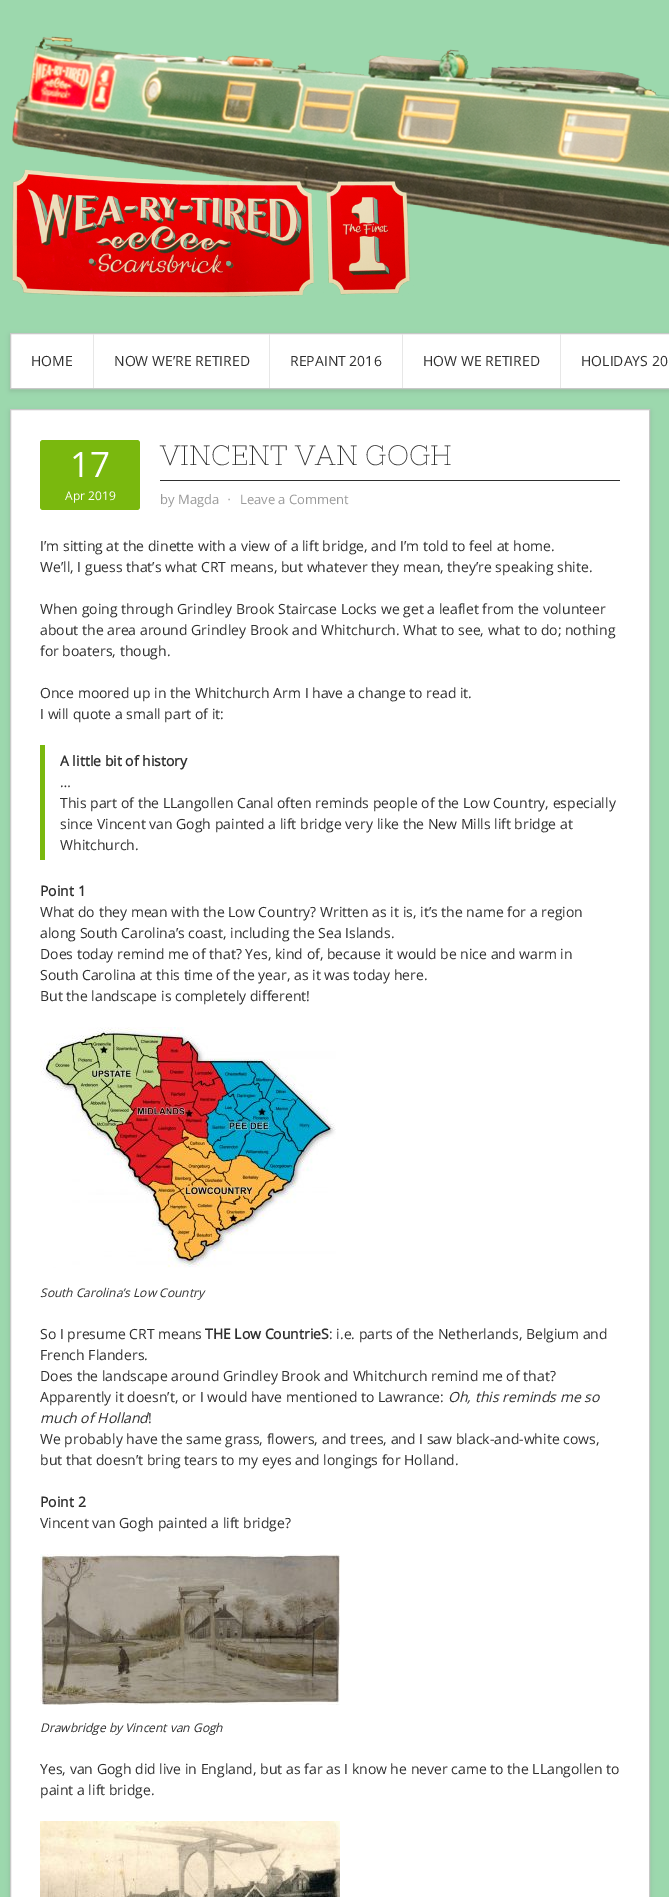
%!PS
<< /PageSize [669 1897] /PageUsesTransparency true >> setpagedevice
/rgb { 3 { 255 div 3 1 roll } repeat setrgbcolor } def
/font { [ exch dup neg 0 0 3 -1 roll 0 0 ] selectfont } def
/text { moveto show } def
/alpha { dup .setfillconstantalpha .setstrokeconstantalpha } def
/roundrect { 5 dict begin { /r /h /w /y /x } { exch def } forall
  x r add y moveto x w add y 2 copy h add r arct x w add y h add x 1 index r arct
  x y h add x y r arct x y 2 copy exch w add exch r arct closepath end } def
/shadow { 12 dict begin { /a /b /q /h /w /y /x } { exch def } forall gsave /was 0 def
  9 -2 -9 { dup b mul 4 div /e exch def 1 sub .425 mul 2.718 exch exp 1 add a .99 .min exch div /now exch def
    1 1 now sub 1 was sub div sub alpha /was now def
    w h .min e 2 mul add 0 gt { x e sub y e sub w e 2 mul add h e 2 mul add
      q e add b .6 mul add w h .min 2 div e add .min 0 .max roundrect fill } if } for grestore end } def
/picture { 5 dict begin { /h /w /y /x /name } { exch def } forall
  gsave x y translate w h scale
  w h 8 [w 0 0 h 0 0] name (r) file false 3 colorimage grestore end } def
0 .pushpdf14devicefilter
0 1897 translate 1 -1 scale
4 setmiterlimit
156 216 173 rgb
0 0 669 1897 rectfill
(img_01.rgb) 12 36 657 261 picture
50 50 50 rgb
10 335 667 56 0 2.5 0.15 shadow
255 255 255 rgb
10.5 333.5 moveto 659 0 rlineto 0 55 rlineto -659 0 rlineto closepath gsave fill grestore
200 200 200 rgb
stroke
231 231 231 rgb
93 334 1 54 rectfill
269 334 1 54 rectfill
402 334 1 54 rectfill
560 334 1 54 rectfill
50 50 50 rgb
10 411 640 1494 0 2.5 0.15 shadow
255 255 255 rgb
10.5 409.5 moveto 639 0 rlineto 0 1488 rlineto -639 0 rlineto closepath gsave fill grestore
200 200 200 rgb
stroke
122 184 14 rgb
40 440 100 70 3 roundrect fill
47 47 47 rgb
160 480 460 1 rectfill
122 184 14 rgb
40 745 5 115 rectfill
(img_02.rgb) 40 1027 296 241 picture
(img_03.rgb) 40 1554 300 151 picture
(img_04.rgb) 40 1821 300 76 picture
/OpenSans-Regular 14 font
47 47 47 rgb
(HOME) 31 366 text
(NOW WE’RE RETIRED) 114 366 text
(REPAINT 2016) 290 366 text
(HOW WE RETIRED) 423 366 text
(HOLIDAYS 20) 581 366 text
/OpenSans-Regular 35 font
255 255 255 rgb
(17) 70 477 text
/OpenSans-Regular 12 font
(Apr 2019) 65 500 text
/NixieOne-Regular 28 font
47 47 47 rgb
(VINCENT VAN GOGH) 160 465 text
/OpenSans-Regular 13 font
153 153 153 rgb
(by Magda) 160 504 text
/DejaVuSans-Regular 13 font
(⋅) 227 504 text
/OpenSans-Regular 13 font
(Leave a Comment) 240 504 text
/OpenSans-Regular 14 font
47 47 47 rgb
(I’m sitting at the dinette with a view of a lift bridge, and I’m told to feel at home.) 40 551 text
(We’ll, I guess that’s what CRT means, but whatever they mean, they’re speaking shite.) 40 572 text
(When going through Grindley Brook Staircase Locks we get a leaflet from the volunteer) 40 614 text
(about the area around Grindley Brook and Whitchurch. What to see, what to do; nothing) 40 635 text
(for boaters, though.) 40 656 text
(Once moored up in the Whitchurch Arm I have a change to read it.) 40 698 text
(I will quote a small part of it:) 40 719 text
/OpenSans-Bold 14 font
(A little bit of history) 60 766 text
/OpenSans-Regular 14 font
(…) 60 787 text
(This part of the LLangollen Canal often reminds people of the Low Country, especially) 60 808 text
(since Vincent van Gogh painted a lift bridge very like the New Mills lift bridge at) 60 829 text
(Whitchurch.) 60 850 text
/OpenSans-Bold 14 font
(Point 1) 40 896 text
/OpenSans-Regular 14 font
(What do they mean with the Low Country? Written as it is, it’s the name for a region) 40 917 text
(along South Carolina’s coast, including the Sea Islands.) 40 938 text
(Does today remind me of that? Yes, kind of, because it would be nice and warm in) 40 959 text
(South Carolina at this time of the year, as it was today here.) 40 980 text
(But the landscape is completely different!) 40 1001 text
/OpenSans-Italic 12 font
(South Carolina’s Low Country) 40 1297 text
/OpenSans-Regular 14 font
(So I presume CRT means) 40 1339 text
/OpenSans-Bold 14 font
(THE Low CountrieS) 205 1339 text
/OpenSans-Regular 14 font
(: i.e. parts of the Netherlands, Belgium and) 329 1339 text
(French Flanders.) 40 1360 text
(Does the landscape around Grindley Brook and Whitchurch remind me of that?) 40 1381 text
(Apparently it doesn’t, or I would have mentioned to Lawrance:) 40 1402 text
/OpenSans-Italic 14 font
(Oh, this reminds me so) 448 1402 text
(much of Holland) 40 1423 text
/OpenSans-Regular 14 font
(!) 148 1423 text
(We probably have the same grass, flowers, and trees, and I saw black-and-white cows,) 40 1444 text
(but that doesn’t bring tears to my eyes and longings for Holland.) 40 1465 text
/OpenSans-Bold 14 font
(Point 2) 40 1507 text
/OpenSans-Regular 14 font
(Vincent van Gogh painted a lift bridge?) 40 1528 text
/OpenSans-Italic 12 font
(Drawbridge by Vincent van Gogh) 40 1732 text
/OpenSans-Regular 14 font
(Yes, van Gogh did live in England, but as far as I know he never came to the LLangollen to) 40 1774 text
(paint a lift bridge.) 40 1795 text
.poppdf14devicefilter showpage
